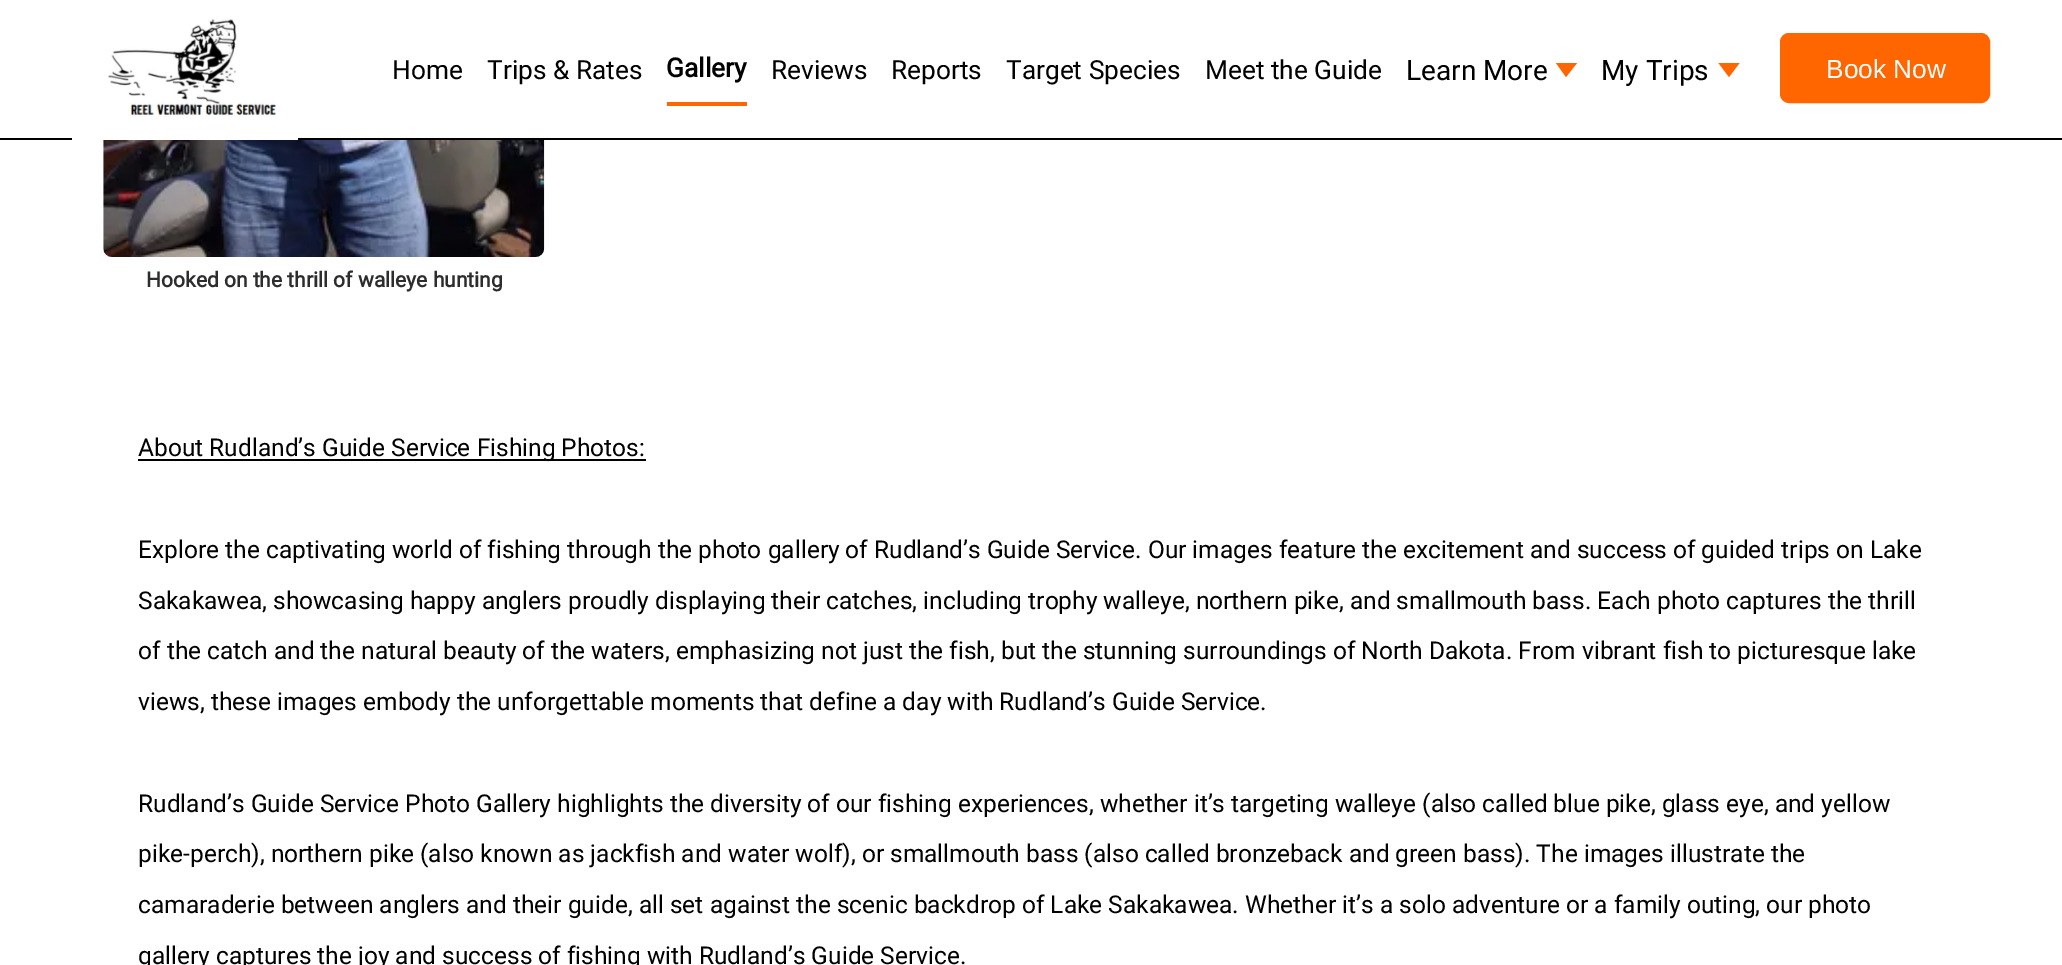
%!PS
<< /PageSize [2062 965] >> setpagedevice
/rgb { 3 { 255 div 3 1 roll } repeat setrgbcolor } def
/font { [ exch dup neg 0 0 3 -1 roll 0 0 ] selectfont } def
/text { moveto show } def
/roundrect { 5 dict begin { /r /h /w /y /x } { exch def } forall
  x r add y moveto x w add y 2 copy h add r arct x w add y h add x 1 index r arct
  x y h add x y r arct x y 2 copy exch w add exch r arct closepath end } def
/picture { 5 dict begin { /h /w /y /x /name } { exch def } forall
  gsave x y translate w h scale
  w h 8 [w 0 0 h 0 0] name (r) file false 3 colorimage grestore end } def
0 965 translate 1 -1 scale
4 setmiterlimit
255 255 255 rgb
0 0 2062 965 rectfill
0 0 0 rgb
0 138 2062 2 rectfill
255 255 255 rgb
72 138 226 2 rectfill
(img_01.rgb) 108 19 169 98 picture
255 102 0 rgb
667 102 80 4 rectfill
1556 63 moveto 21 0 rlineto -11 14 rlineto closepath fill
1718.5 63 moveto 21 0 rlineto -10.5 14 rlineto closepath fill
1781 34 208 68 8 roundrect gsave fill grestore
2 setlinewidth
stroke
(img_02.rgb) 103 140 442 117 picture
0 0 0 rgb
138 459 508 2 rectfill
/Roboto-Regular 26.25 font
(Home) 392 79 text
(Trips & Rates) 487 79 text
/Roboto-Bold 26.25 font
(Gallery) 666 77 text
/Roboto-Regular 26.25 font
(Reviews) 771 79 text
(Reports) 891 79 text
(Target Species) 1006 79 text
(Meet the Guide) 1205 79 text
/Roboto-Regular 28 font
(Learn More) 1406 80 text
(My Trips) 1601 80 text
/LiberationSans-Regular 26.25 font
255 255 255 rgb
(Book Now) 1826 78 text
/Roboto-Bold 21 font
45 45 45 rgb
(Hooked on the thrill of walleye hunting) 146 287 text
/Roboto-Regular 24.5 font
0 0 0 rgb
(About Rudland’s Guide Service Fishing Photos:) 138 456 text
(Explore the captivating world of fishing through the photo gallery of Rudland’s Guide Service. Our images feature the excitement and success of guided trips on Lake) 138 558 text
(Sakakawea, showcasing happy anglers proudly displaying their catches, including trophy walleye, northern pike, and smallmouth bass. Each photo captures the thrill) 138 609 text
(of the catch and the natural beauty of the waters, emphasizing not just the fish, but the stunning surroundings of North Dakota. From vibrant fish to picturesque lake) 138 659 text
(views, these images embody the unforgettable moments that define a day with Rudland’s Guide Service.) 138 710 text
(Rudland’s Guide Service Photo Gallery highlights the diversity of our fishing experiences, whether it’s targeting walleye \(also called blue pike, glass eye, and yellow) 138 812 text
(pike-perch\), northern pike \(also known as jackfish and water wolf\), or smallmouth bass \(also called bronzeback and green bass\). The images illustrate the) 138 862 text
(camaraderie between anglers and their guide, all set against the scenic backdrop of Lake Sakakawea. Whether it’s a solo adventure or a family outing, our photo) 138 913 text
(gallery captures the joy and success of fishing with Rudland’s Guide Service.) 138 964 text
showpage
